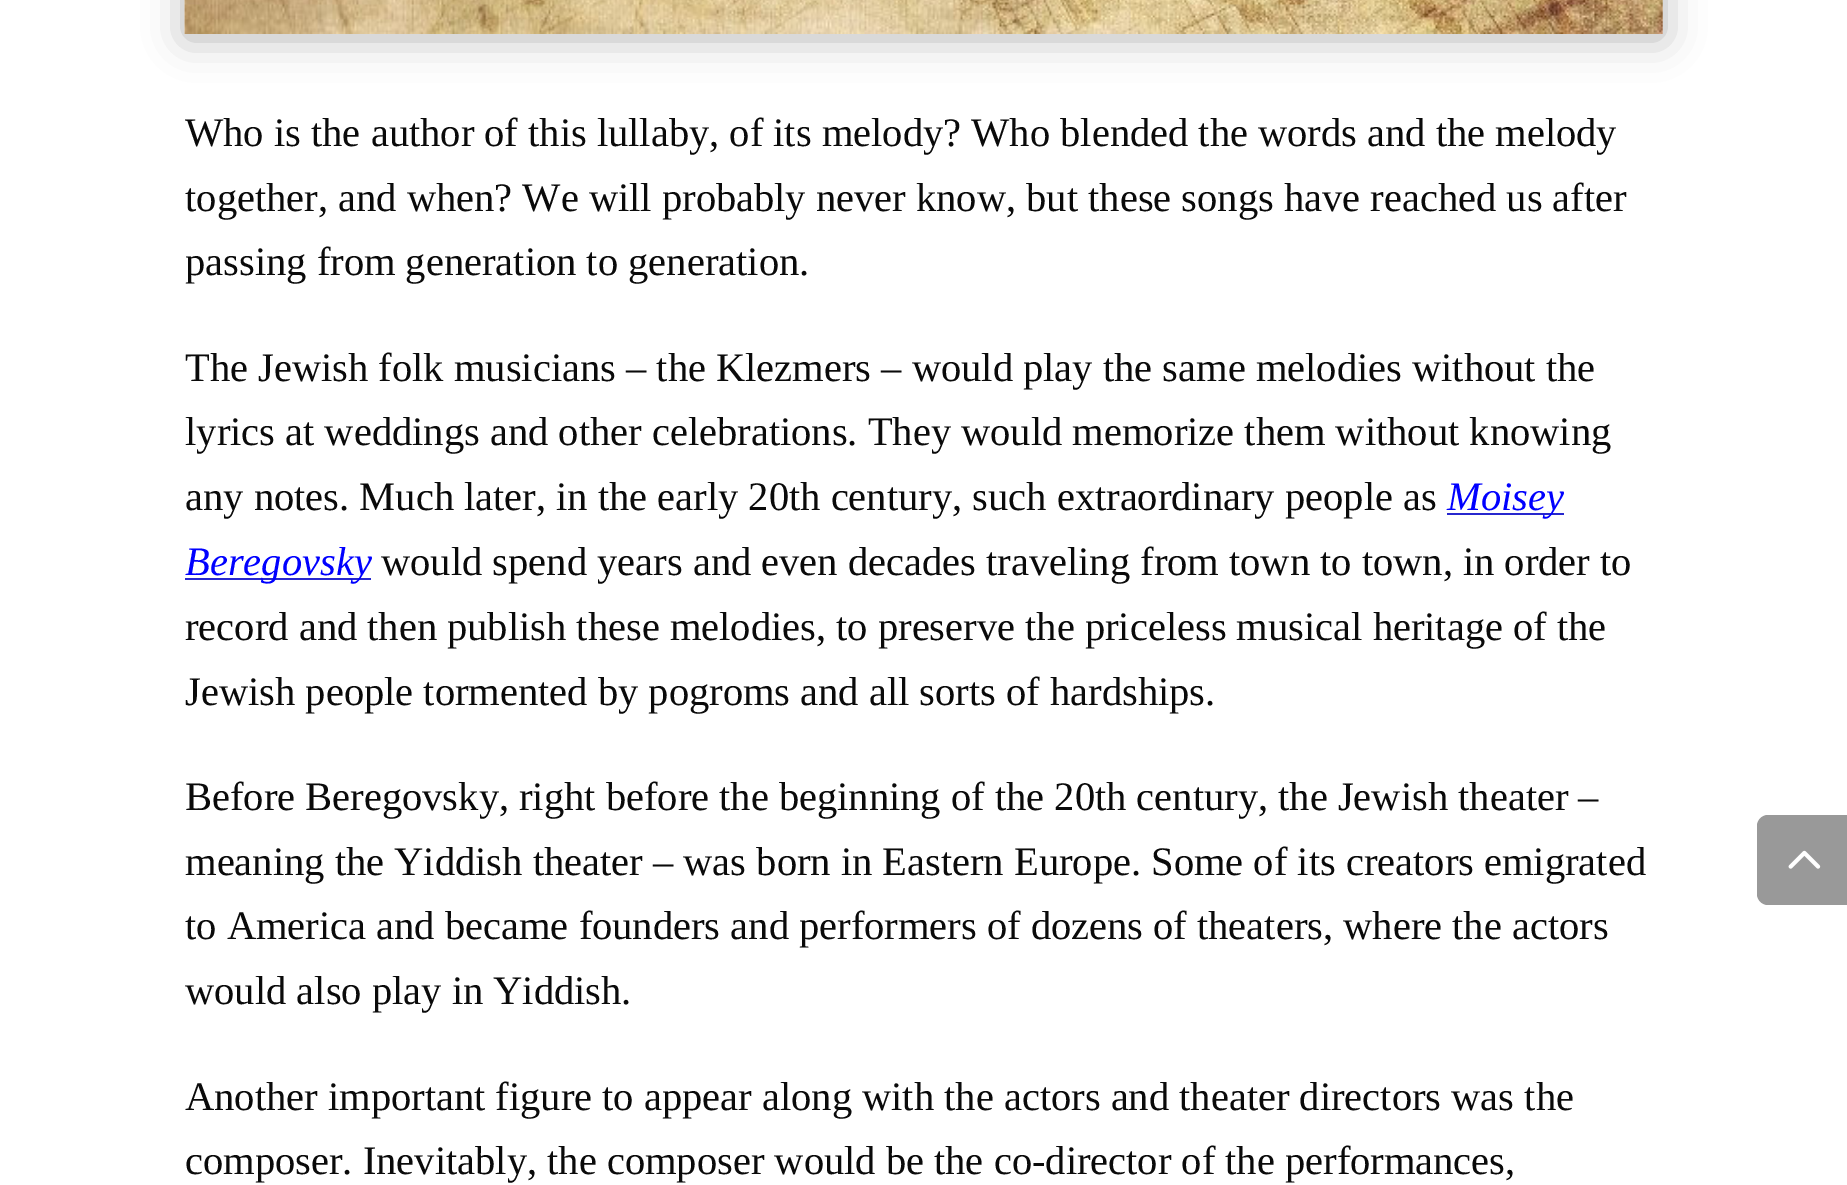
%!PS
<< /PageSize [1847 1185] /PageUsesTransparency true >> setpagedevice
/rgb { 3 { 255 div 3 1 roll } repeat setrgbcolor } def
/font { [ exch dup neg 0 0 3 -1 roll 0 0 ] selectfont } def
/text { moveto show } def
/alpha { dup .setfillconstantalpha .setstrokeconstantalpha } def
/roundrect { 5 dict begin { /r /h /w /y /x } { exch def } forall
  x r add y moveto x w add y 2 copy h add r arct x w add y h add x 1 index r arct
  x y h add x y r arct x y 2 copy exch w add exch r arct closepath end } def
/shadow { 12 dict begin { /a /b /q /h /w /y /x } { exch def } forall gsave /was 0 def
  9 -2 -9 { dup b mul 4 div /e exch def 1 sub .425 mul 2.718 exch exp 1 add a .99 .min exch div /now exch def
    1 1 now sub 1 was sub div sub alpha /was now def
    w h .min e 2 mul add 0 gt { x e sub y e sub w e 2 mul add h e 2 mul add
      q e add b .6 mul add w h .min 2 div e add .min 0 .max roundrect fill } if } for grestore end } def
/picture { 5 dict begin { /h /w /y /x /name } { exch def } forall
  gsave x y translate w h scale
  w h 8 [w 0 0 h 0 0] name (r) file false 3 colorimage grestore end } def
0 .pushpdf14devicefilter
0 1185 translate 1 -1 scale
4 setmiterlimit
255 255 255 rgb
0 0 1847 1185 rectfill
0 0 0 rgb
185 -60 1478 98 0 20 0.3 shadow
(img_01.rgb) 184 0 1479 34 picture
39 39 206 rgb
1447 513 117 2 rectfill
185 578 186 2 rectfill
153 153 153 rgb
1768 815 moveto 79 0 rlineto 0 90 rlineto -79 0 rlineto -6 0 -11 -5 -11 -11 rcurveto 0 -68 rlineto 0 -6 5 -11 11 -11 rcurveto closepath fill
(img_02.rgb) 1788 850 33 19 picture
/LiberationSerif-Regular 40.5 font
10 10 10 rgb
(Who is the author of this lullaby, of its melody? Who blended the words and the melody) 185 146 text
(together, and when? We will probably never know, but these songs have reached us after) 185 211 text
(passing from generation to generation.) 185 275 text
(The Jewish folk musicians – the Klezmers – would play the same melodies without the) 185 381 text
(lyrics at weddings and other celebrations. They would memorize them without knowing) 185 445 text
(any notes. Much later, in the early 20th century, such extraordinary people as) 185 510 text
/LiberationSerif-Italic 40.5 font
0 0 255 rgb
(Moisey) 1447 510 text
(Beregovsky) 185 575 text
/LiberationSerif-Regular 40.5 font
10 10 10 rgb
(would spend years and even decades traveling from town to town, in order to) 381 575 text
(record and then publish these melodies, to preserve the priceless musical heritage of the) 185 640 text
(Jewish people tormented by pogroms and all sorts of hardships.) 185 705 text
(Before Beregovsky, right before the beginning of the 20th century, the Jewish theater –) 185 810 text
(meaning the Yiddish theater – was born in Eastern Europe. Some of its creators emigrated) 185 875 text
(to America and became founders and performers of dozens of theaters, where the actors) 185 939 text
(would also play in Yiddish.) 185 1004 text
(Another important figure to appear along with the actors and theater directors was the) 185 1110 text
(composer. Inevitably, the composer would be the co-director of the performances,) 185 1174 text
.poppdf14devicefilter showpage
